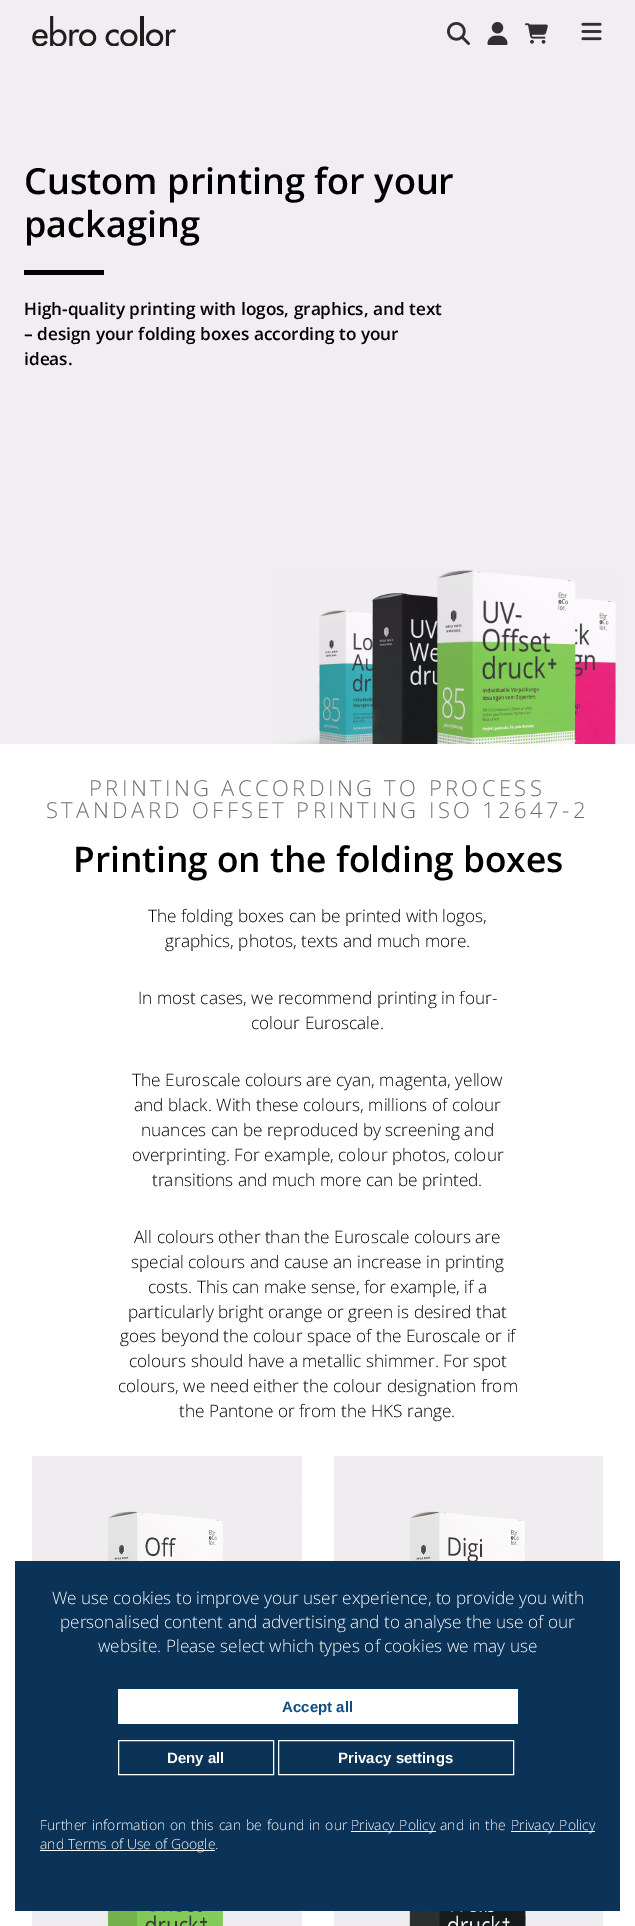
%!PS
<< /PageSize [635 1926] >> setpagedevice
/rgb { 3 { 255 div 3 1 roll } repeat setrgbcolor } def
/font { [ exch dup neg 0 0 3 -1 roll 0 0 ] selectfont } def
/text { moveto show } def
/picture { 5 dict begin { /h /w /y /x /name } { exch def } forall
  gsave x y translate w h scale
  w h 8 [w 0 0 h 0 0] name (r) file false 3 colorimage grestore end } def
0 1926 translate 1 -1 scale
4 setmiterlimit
255 255 255 rgb
0 0 635 1926 rectfill
242 237 243 rgb
0 0 635 744 rectfill
(img_01.rgb) 32 16 144 30 picture
(img_02.rgb) 447 22 23 23 picture
(img_03.rgb) 487 22 21 23 picture
(img_04.rgb) 525 23 23 21 picture
(img_05.rgb) 581 22 21 19 picture
(img_06.rgb) 273 570 344 174 picture
0 0 0 rgb
24 270 80 5 rectfill
(img_07.rgb) 32 1456 270 105 picture
(img_08.rgb) 334 1456 269 105 picture
(img_09.rgb) 32 1911 270 15 picture
(img_10.rgb) 334 1911 269 15 picture
11 51 88 rgb
15 1561 605 350 rectfill
255 255 255 rgb
118 1689 400 35 rectfill
118.5 1740.5 155 34 rectstroke
278.5 1740.5 235 34 rectstroke
351 1831 85 1 rectfill
511 1831 84 1 rectfill
40 1850 175 1 rectfill
/OpenSans-SemiBold 36 font
0 0 0 rgb
(Custom printing for your) 24 194 text
(packaging) 24 237 text
/OpenSans-SemiBold 17.2 font
(High-quality printing with logos, graphics, and text) 24 315 text
(– design your folding boxes according to your) 24 340 text
(ideas.) 24 365 text
/OpenSans-Light 22 font
108 108 108 rgb
89 796 moveto 3.4 0 (PRINTING ACCORDING TO PROCESS) ashow
46 818 moveto 3.4 0 (STANDARD OFFSET PRINTING ISO 12647-2) ashow
/OpenSans-SemiBold 35.25 font
0 0 0 rgb
(Printing on the folding boxes) 73 872 text
/OpenSans-Light 17.2 font
(The folding boxes can be printed with logos,) 148 922 text
(graphics, photos, texts and much more.) 165 947 text
(In most cases, we recommend printing in four-) 138 1004 text
(colour Euroscale.) 251 1029 text
(The Euroscale colours are cyan, magenta, yellow) 132 1086 text
(and black. With these colours, millions of colour) 134 1111 text
(nuances can be reproduced by screening and) 141 1136 text
(overprinting. For example, colour photos, colour) 132 1161 text
(transitions and much more can be printed.) 152 1186 text
(All colours other than the Euroscale colours are) 134 1243 text
(special colours and cause an increase in printing) 131 1268 text
(costs. This can make sense, for example, if a) 148 1293 text
(particularly bright orange or green is desired that) 128 1318 text
(goes beyond the colour space of the Euroscale or if) 120 1342 text
(colours should have a metallic shimmer. For spot) 129 1367 text
(colours, we need either the colour designation from) 118 1392 text
(the Pantone or from the HKS range.) 179 1417 text
255 255 255 rgb
(We use cookies to improve your user experience, to provide you with) 52 1604 text
(personalised content and advertising and to analyse the use of our) 60 1628 text
(website. Please select which types of cookies we may use) 98 1652 text
/LiberationSans-Bold 15 font
16 77 133 rgb
(Accept all) 282 1712 text
255 255 255 rgb
(Deny all) 167 1763 text
(Privacy settings) 338 1763 text
/OpenSans-Light 14 font
40 1830 moveto 1.25 0 32 (Further information on this can be found in our) widthshow
351 1830 moveto 1 0 32 (Privacy Policy) widthshow
440 1830 moveto 1.25 0 32 (and in the) widthshow
511 1830 moveto 1 0 32 (Privacy Policy) widthshow
(and Terms of Use of Google.) 40 1849 text
showpage
